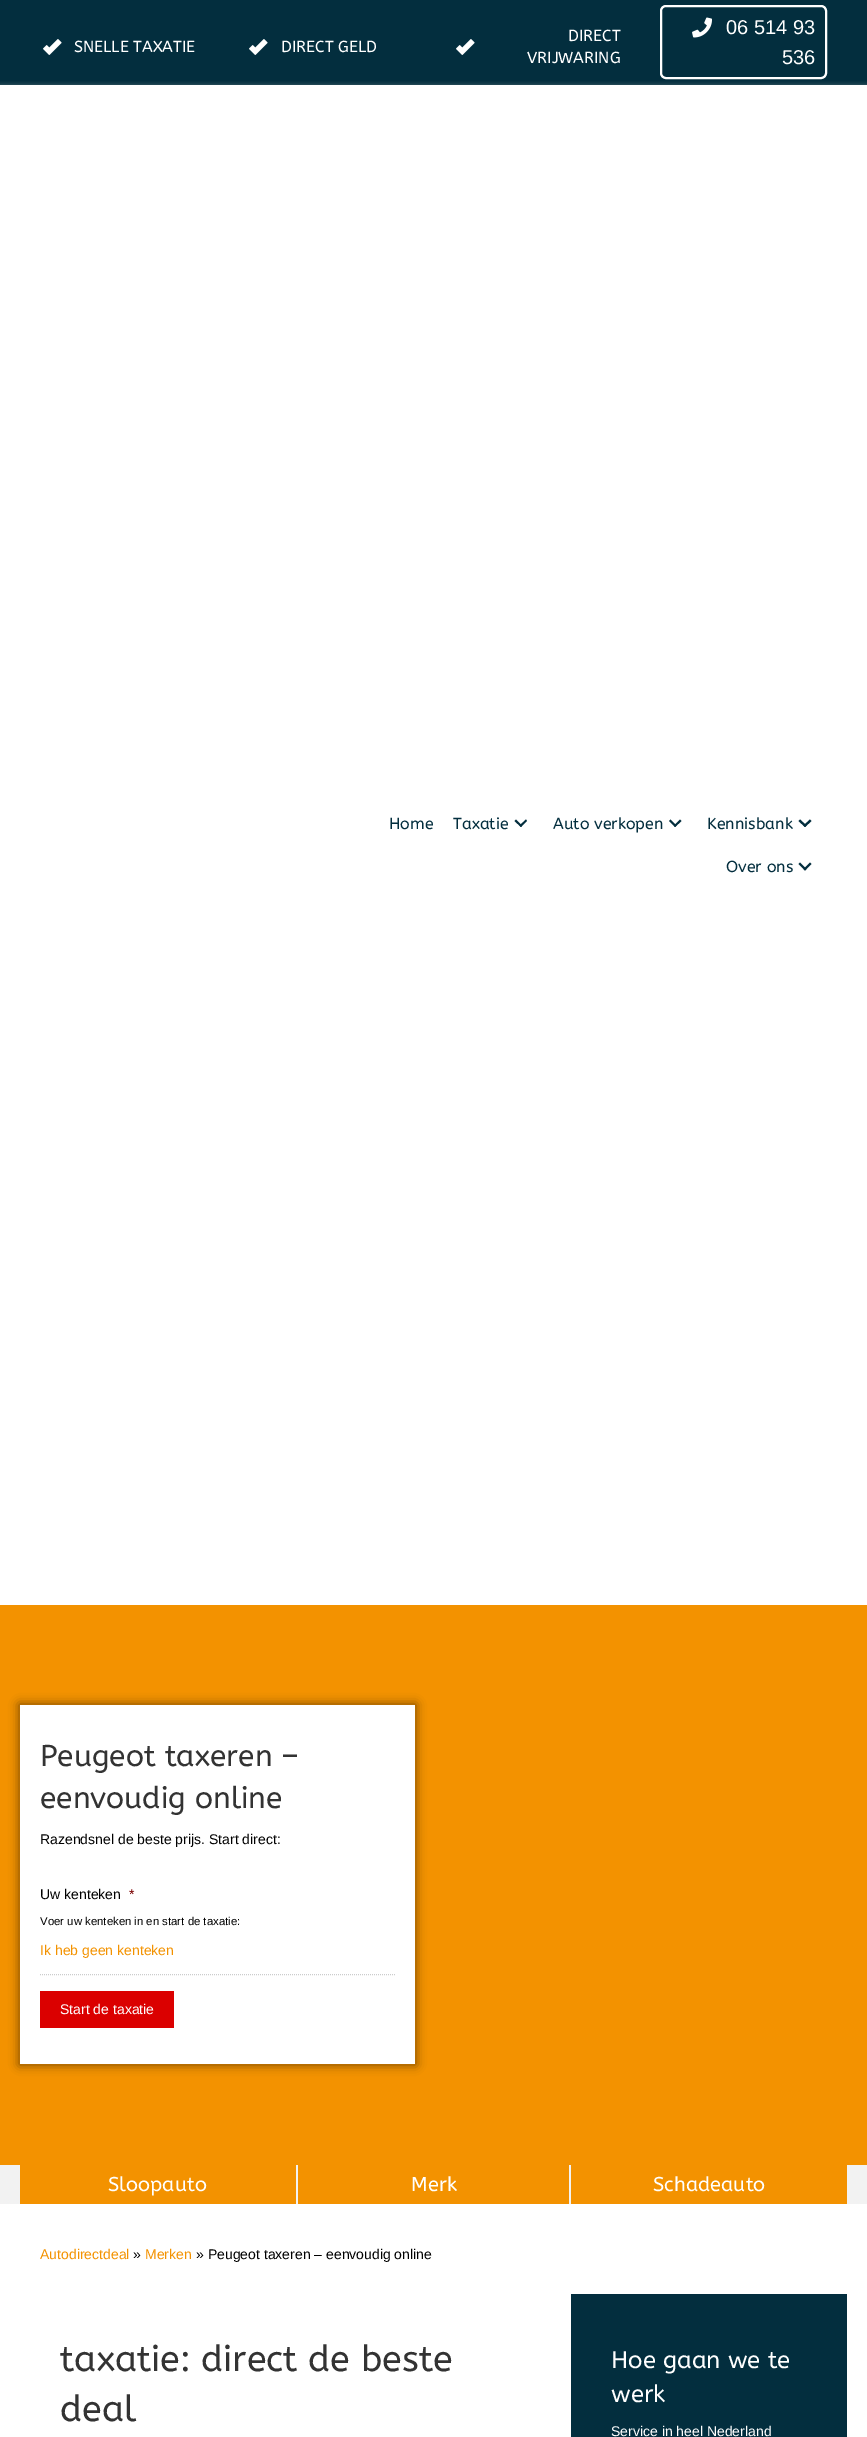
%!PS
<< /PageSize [867 2437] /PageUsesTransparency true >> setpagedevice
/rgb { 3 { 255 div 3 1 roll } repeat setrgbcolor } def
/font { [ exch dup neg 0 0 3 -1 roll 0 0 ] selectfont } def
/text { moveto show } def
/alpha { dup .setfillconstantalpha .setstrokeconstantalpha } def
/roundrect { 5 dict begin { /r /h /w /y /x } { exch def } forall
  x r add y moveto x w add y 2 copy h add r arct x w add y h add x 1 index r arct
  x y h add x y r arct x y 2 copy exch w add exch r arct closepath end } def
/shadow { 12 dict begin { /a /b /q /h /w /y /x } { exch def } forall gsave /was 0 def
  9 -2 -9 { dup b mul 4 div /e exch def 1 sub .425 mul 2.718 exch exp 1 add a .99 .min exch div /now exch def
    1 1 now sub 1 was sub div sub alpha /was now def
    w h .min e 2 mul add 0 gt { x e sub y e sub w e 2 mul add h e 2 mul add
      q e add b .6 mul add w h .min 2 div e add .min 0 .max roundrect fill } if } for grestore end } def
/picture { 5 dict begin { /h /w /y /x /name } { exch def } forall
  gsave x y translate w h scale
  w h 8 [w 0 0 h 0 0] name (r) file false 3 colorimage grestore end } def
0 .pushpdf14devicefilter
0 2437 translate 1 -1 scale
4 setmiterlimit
255 255 255 rgb
0 0 867 2437 rectfill
3 46 62 rgb
0 0 867 85 rectfill
(img_01.rgb) 43 39 19 16 picture
(img_01.rgb) 249 39 19 16 picture
(img_01.rgb) 456 39 19 16 picture
255 255 255 rgb
2 setlinewidth
661 6 165 72 5 roundrect stroke
(img_02.rgb) 692 17 20 21 picture
196 196 196 rgb
0 87 867 1520 0 2.5 1 shadow
255 255 255 rgb
0 85 867 1520 rectfill
3 46 62 rgb
526 819.5 moveto 1 1.5 rlineto -6 6 rlineto -1.5 -1.5 rlineto closepath fill
516 819.5 moveto 6 6 rlineto -1 1.5 rlineto -6.5 -6 rlineto closepath fill
680 819.5 moveto 1.5 1.5 rlineto -6.5 6 rlineto -1 -1.5 rlineto closepath fill
670.5 819.5 moveto 6 6 rlineto -1.5 1.5 rlineto -6 -6 rlineto closepath fill
810 819.5 moveto 1.5 1.5 rlineto -6.5 6 rlineto -1.5 -1.5 rlineto closepath fill
800 819.5 moveto 6.5 6 rlineto -1.5 1.5 rlineto -6.5 -6 rlineto closepath 810 862.5 moveto 1.5 1.5 rlineto -6.5 6.5 rlineto -1.5 -1.5 rlineto closepath fill
800 862.5 moveto 6.5 6.5 rlineto -1.5 1.5 rlineto -6.5 -6.5 rlineto closepath fill
243 146 0 rgb
0 1605 867 560 rectfill
0 0 0 rgb
19 1704 397 361 0 5 0.5 shadow
255 255 255 rgb
20 1705 395 359 rectfill
204 204 204 rgb
1 setlinewidth
[1 1] 0 setdash
40 1974.5 moveto 355 0 rlineto stroke
219 0 0 rgb
40 1991 134 37 rectfill
242 242 242 rgb
0 2165 867 39 rectfill
243 146 0 rgb
20 2165 276 39 rectfill
298 2165 271 39 rectfill
571 2165 276 39 rectfill
3 46 62 rgb
571 2294 276 143 rectfill
/ABeeZee-Regular 16 font
255 255 255 rgb
(SNELLE TAXATIE) 74 52 text
(DIRECT GELD) 281 52 text
(DIRECT) 568 41 text
(VRIJWARING) 527 63 text
/LiberationSans-Regular 20 font
(06 514 93) 726 34 text
(536) 782 64 text
/ABeeZee-Regular 16 font
3 46 62 rgb
(Home) 389 829 text
(Taxatie) 453 829 text
(Auto verkopen) 553 829 text
(Kennisbank) 707 829 text
(Over ons) 726 872 text
/ABeeZee-Regular 30 font
51 51 51 rgb
(Peugeot taxeren –) 40 1766 text
(eenvoudig online) 40 1808 text
/LiberationSans-Regular 14 font
0 0 0 rgb
(Razendsnel de beste prijs. Start direct:) 40 1844 text
(Uw kenteken) 40 1899 text
121 0 0 rgb
(*) 129 1899 text
/LiberationSans-Regular 11.4 font
0 0 0 rgb
(Voer uw kenteken in en start de taxatie:) 40 1925 text
/LiberationSans-Regular 14 font
243 146 0 rgb
(Ik heb geen kenteken) 40 1955 text
255 255 255 rgb
(Start de taxatie) 60 2014 text
/ABeeZee-Regular 20 font
(Sloopauto) 108 2191 text
(Merk) 411 2191 text
(Schadeauto) 653 2191 text
/LiberationSans-Regular 14 font
243 146 0 rgb
(Autodirectdeal) 40 2259 text
0 0 0 rgb
(») 133 2259 text
243 146 0 rgb
(Merken) 145 2259 text
0 0 0 rgb
(» Peugeot taxeren – eenvoudig online) 196 2259 text
/ABeeZee-Regular 36 font
51 51 51 rgb
(taxatie: direct de beste) 60 2371 text
(deal) 60 2421 text
/ABeeZee-Regular 24 font
255 255 255 rgb
(Hoe gaan we te) 611 2368 text
(werk) 611 2402 text
/LiberationSans-Regular 14 font
(Service in heel Nederland) 611 2436 text
.poppdf14devicefilter showpage
